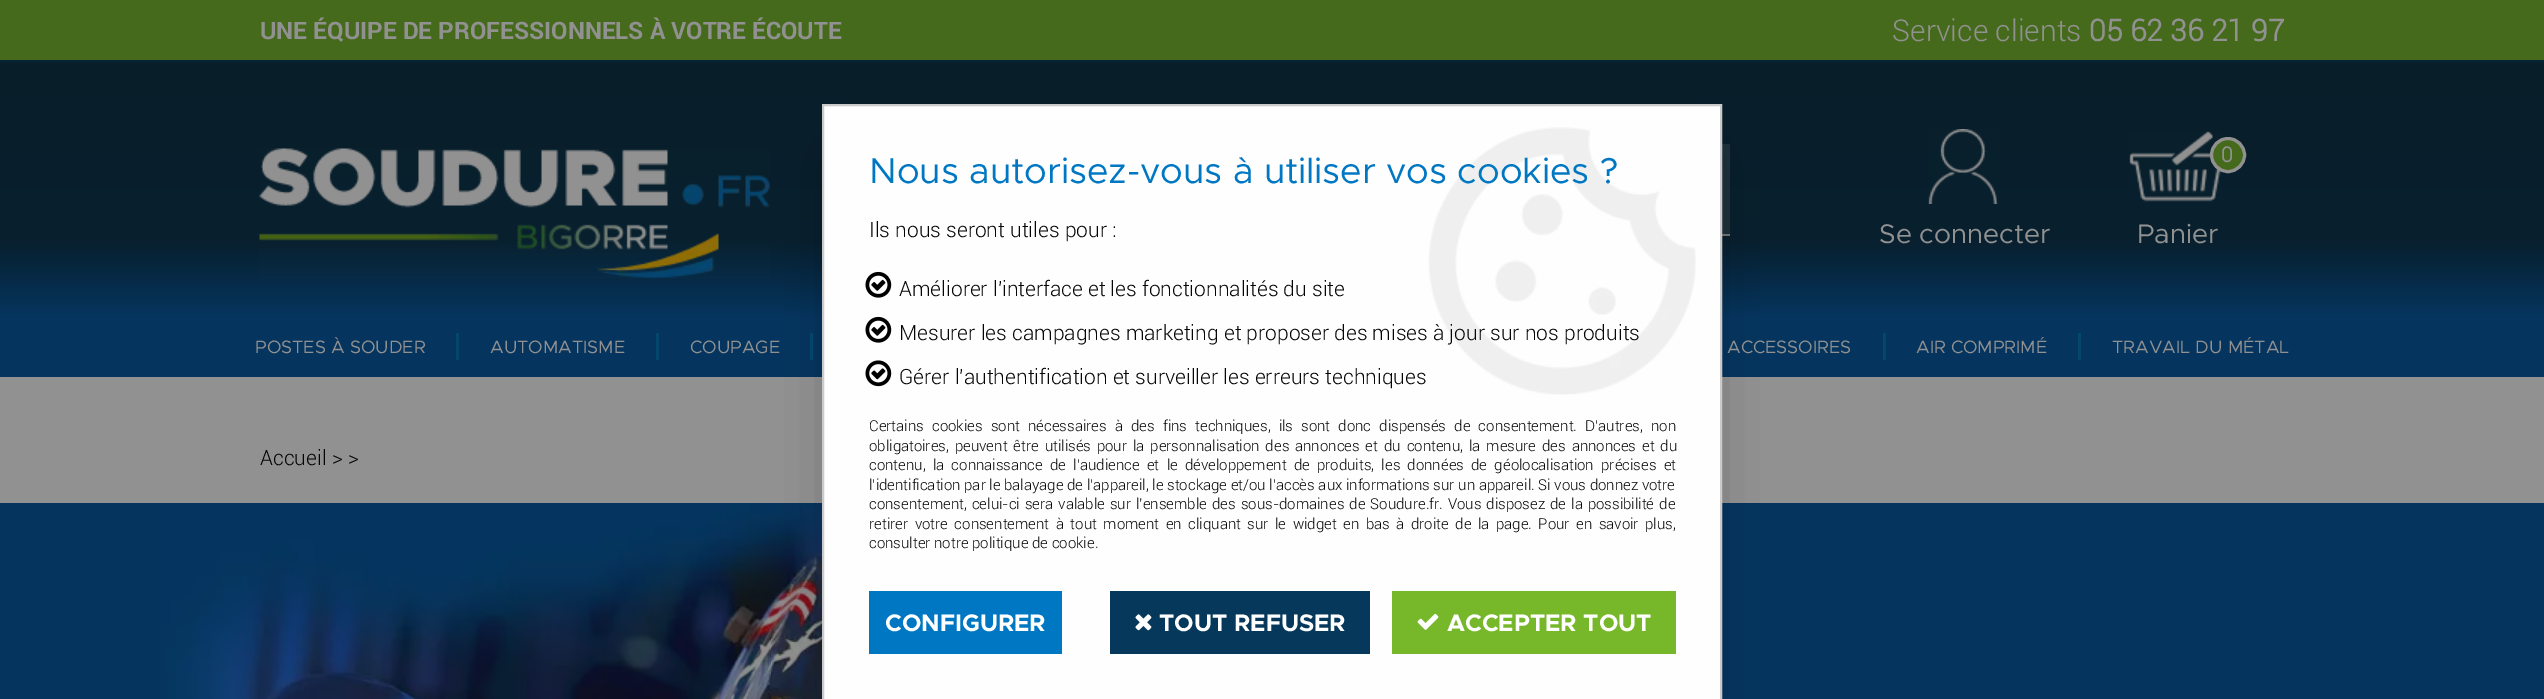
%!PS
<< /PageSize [2544 699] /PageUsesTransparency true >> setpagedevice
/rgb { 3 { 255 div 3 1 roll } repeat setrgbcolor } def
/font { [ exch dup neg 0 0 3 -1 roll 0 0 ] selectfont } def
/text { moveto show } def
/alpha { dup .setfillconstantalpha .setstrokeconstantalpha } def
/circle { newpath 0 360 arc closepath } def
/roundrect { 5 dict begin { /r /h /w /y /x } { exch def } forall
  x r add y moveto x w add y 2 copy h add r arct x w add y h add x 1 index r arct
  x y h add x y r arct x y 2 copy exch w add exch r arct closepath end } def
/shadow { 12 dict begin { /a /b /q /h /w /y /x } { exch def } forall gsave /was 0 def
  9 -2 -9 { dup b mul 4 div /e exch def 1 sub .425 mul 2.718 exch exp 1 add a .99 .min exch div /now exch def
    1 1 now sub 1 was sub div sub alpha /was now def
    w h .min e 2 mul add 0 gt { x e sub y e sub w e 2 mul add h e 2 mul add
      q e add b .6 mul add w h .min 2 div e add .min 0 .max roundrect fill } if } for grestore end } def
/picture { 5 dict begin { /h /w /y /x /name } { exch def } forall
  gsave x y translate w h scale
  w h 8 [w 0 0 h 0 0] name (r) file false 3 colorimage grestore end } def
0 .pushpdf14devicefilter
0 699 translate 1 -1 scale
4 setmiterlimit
145 145 145 rgb
0 0 2544 699 rectfill
69 106 28 rgb
0 0 2544 60 rectfill
7 35 54 rgb
0 60 2544 2 rectfill
gsave 0 62 moveto 2544 0 rlineto 0 255 rlineto -2544 0 rlineto closepath clip newpath
<< /ShadingType 2 /ColorSpace /DeviceRGB /Coords [1272 61 1272 317] /Extend [true true] /Function << /FunctionType 3 /Domain [0 1] /Functions [<< /FunctionType 2 /Domain [0 1] /C0 [0.035 0.118 0.161] /C1 [0.031 0.125 0.18] /N 1 >> << /FunctionType 2 /Domain [0 1] /C0 [0.031 0.125 0.18] /C1 [0.02 0.208 0.369] /N 1 >>] /Bounds [0.7] /Encode [0 1 0 1] >> >> shfill grestore
gsave 1722 144 moveto 8 0 rlineto 0 90 rlineto -8 0 rlineto closepath clip newpath
<< /ShadingType 2 /ColorSpace /DeviceRGB /Coords [1272 61 1272 317] /Extend [true true] /Function << /FunctionType 3 /Domain [0 1] /Functions [<< /FunctionType 2 /Domain [0 1] /C0 [0.114 0.184 0.22] /C1 [0.114 0.192 0.239] /N 1 >> << /FunctionType 2 /Domain [0 1] /C0 [0.114 0.192 0.239] /C1 [0.098 0.263 0.396] /N 1 >>] /Bounds [0.7] /Encode [0 1 0 1] >> >> shfill grestore
(img_01.rgb) 259 148 511 131 picture
117 117 117 rgb
1722 234 8 2 rectfill
(img_02.rgb) 1928 129 71 75 picture
(img_03.rgb) 2129 131 92 71 picture
69 106 28 rgb
2228 155 16.5 circle gsave fill grestore
145 145 145 rgb
3 setlinewidth
stroke
5 53 94 rgb
0 317 2544 60 rectfill
5 70 111 rgb
456 333 3 27 rectfill
656 333 3 27 rectfill
810 333 3 27 rectfill
1883 333 3 27 rectfill
2078 333 3 27 rectfill
5 53 94 rgb
0 503 2544 196 rectfill
(img_04.rgb) 161 503 661 196 picture
0 0 0 rgb
852 164 840 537 0 30 0.5 shadow
254 254 254 rgb
824 106 896 593 rectfill
(img_05.rgb) 1428 127 268 268 picture
202 202 202 rgb
2 setlinewidth
823 105 898 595 rectstroke
(img_06.rgb) 865 271 27 27 picture
(img_06.rgb) 865 316 27 27 picture
(img_07.rgb) 865 360 27 27 picture
0 119 194 rgb
869 591 193 63 rectfill
5 56 90 rgb
1110 591 260 63 rectfill
(img_08.rgb) 1135 614 17 17 picture
118 184 42 rgb
1392 591 284 63 rectfill
(img_09.rgb) 1417 613 22 17 picture
/roboto-Bold 24 font
145 145 145 rgb
(UNE ÉQUIPE DE PROFESSIONNELS À VOTRE ÉCOUTE) 260 39 text
/Roboto-Light 30 font
(Service clients) 1892 41 text
/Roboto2-Bold 30 font
(05 62 36 21 97) 2089 41 text
/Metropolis-Regular 27 font
(Se connecter) 1879 243 text
/Roboto2-Bold 21 font
(0) 2221 162 text
/Metropolis-Regular 27 font
(Panier) 2137 243 text
/Metropolis-Regular 18 font
(POSTES À SOUDER) 255 353 text
(AUTOMATISME) 490 353 text
(COUPAGE) 690 353 text
(ACCESSOIRES) 1727 353 text
(AIR COMPRIMÉ) 1916 353 text
(TRAVAIL DU MÉTAL) 2112 353 text
/Roboto-Light 21 font
5 5 5 rgb
(Accueil > >) 260 465 text
/Metropolis-Regular 36 font
0 119 194 rgb
(Nous autorisez-vous à utiliser vos cookies ?) 869 183 text
/Roboto-Light 21 font
5 5 5 rgb
(Ils nous seront utiles pour :) 869 237 text
(Améliorer l'interface et les fonctionnalités du site) 899 296 text
(Mesurer les campagnes marketing et proposer des mises à jour sur nos produits) 899 340 text
(Gérer l'authentification et surveiller les erreurs techniques) 899 384 text
/Roboto-Light 15 font
869 431 moveto 4.5 0 32 (Certains cookies sont nécessaires à des fins techniques, ils sont donc dispensés de consentement. D'autres, non) widthshow
869 451 moveto 2.25 0 32 (obligatoires, peuvent être utilisés pour la personnalisation des annonces et du contenu, la mesure des annonces et du) widthshow
869 470 moveto 3.6 0 32 (contenu, la connaissance de l'audience et le développement de produits, les données de géolocalisation précises et) widthshow
(l'identification par le balayage de l'appareil, le stockage et/ou l'accès aux informations sur un appareil. Si vous donnez votre) 869 490 text
869 509 moveto 1.4 0 32 (consentement, celui-ci sera valable sur l’ensemble des sous-domaines de Soudure.fr. Vous disposez de la possibilité de) widthshow
869 529 moveto 2.9 0 32 (retirer votre consentement à tout moment en cliquant sur le widget en bas à droite de la page. Pour en savoir plus,) widthshow
(consulter notre politique de cookie.) 869 548 text
/Metropolis-Bold 24 font
255 255 255 rgb
(CONFIGURER) 885 631 text
(TOUT REFUSER) 1159 631 text
(ACCEPTER TOUT) 1447 631 text
.poppdf14devicefilter showpage
